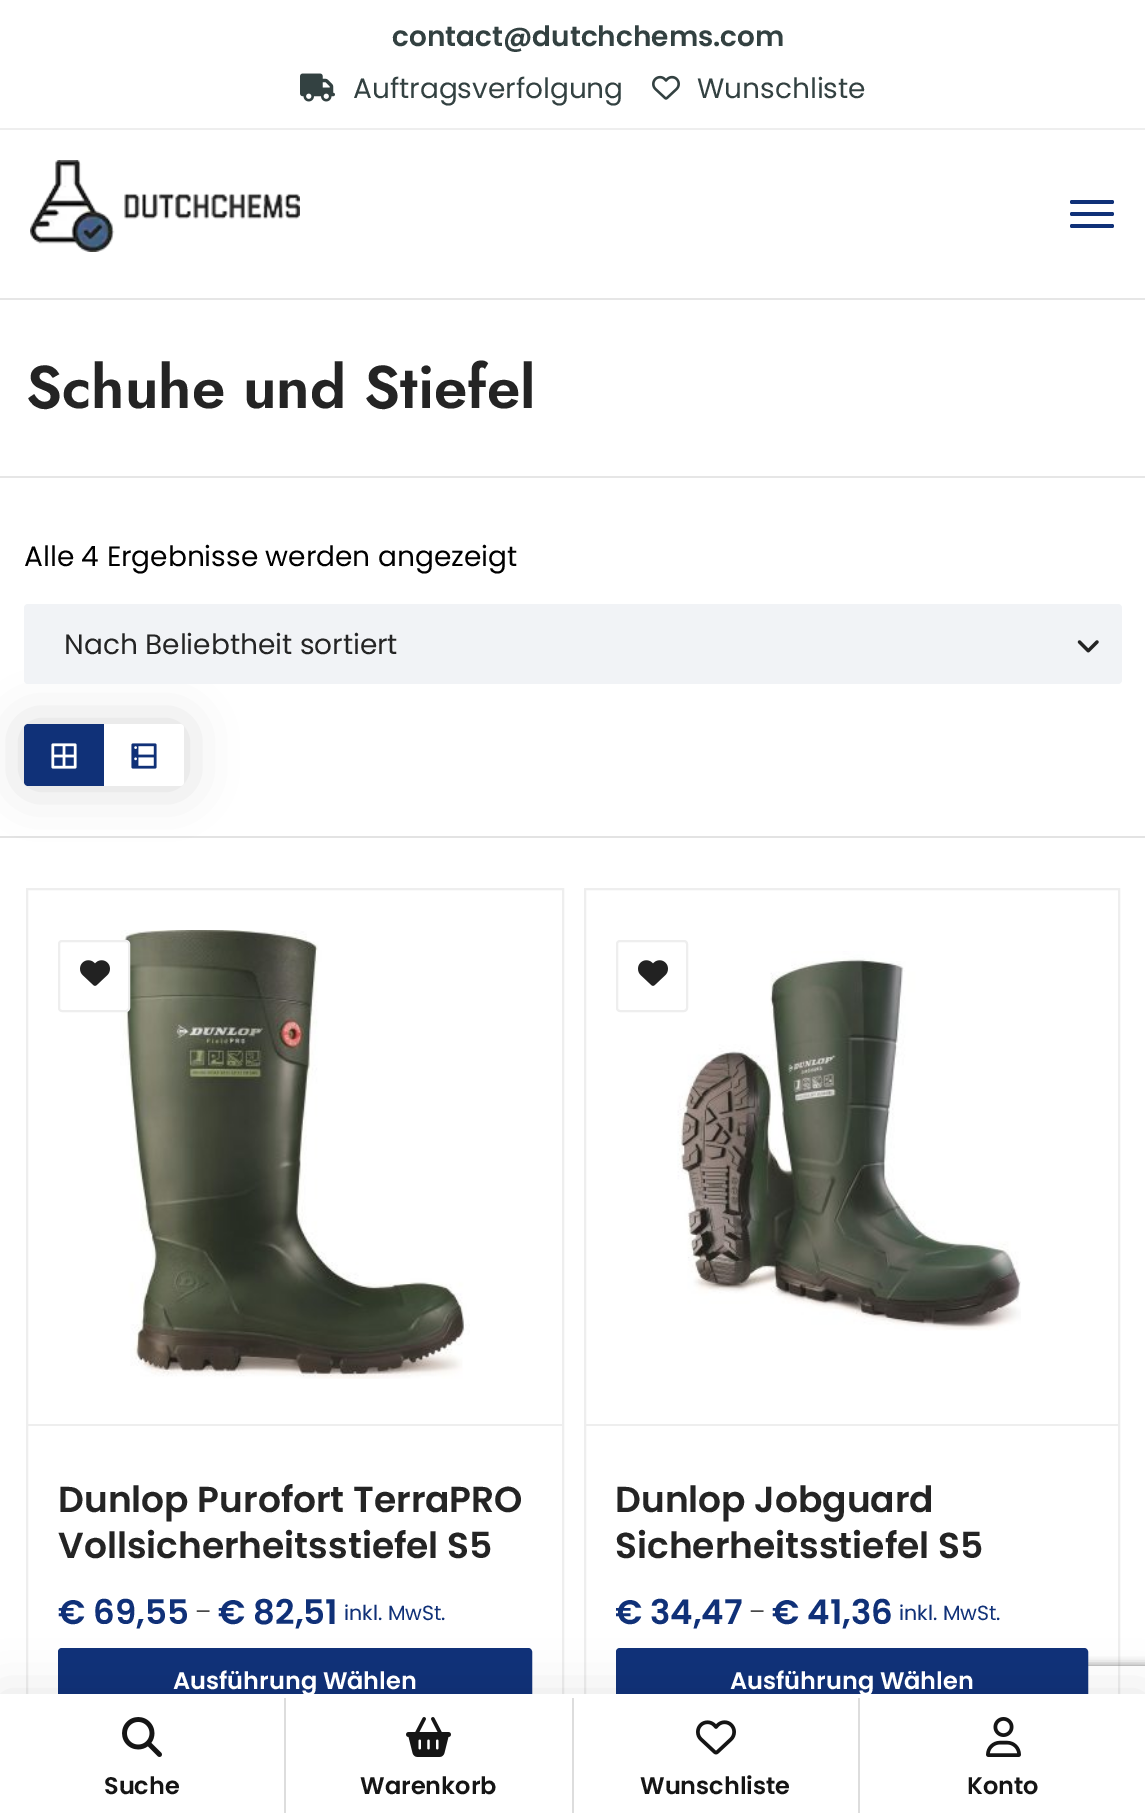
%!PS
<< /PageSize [1145 1813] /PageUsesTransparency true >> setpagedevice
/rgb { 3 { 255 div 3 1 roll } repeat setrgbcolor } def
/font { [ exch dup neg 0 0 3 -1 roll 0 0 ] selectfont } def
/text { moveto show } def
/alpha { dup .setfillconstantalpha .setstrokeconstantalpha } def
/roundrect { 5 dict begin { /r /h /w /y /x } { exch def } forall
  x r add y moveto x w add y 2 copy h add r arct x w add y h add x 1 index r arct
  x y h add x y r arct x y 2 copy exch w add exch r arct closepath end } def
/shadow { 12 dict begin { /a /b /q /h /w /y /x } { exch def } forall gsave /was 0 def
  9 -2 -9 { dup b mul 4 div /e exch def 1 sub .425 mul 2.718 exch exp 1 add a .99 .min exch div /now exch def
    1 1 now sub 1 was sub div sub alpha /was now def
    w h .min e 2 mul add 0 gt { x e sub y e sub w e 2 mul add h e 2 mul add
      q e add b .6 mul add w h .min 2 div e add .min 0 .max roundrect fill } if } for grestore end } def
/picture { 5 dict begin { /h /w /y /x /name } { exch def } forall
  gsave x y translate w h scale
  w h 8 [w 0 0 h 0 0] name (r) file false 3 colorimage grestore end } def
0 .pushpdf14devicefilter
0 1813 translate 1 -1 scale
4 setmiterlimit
255 255 255 rgb
0 0 1145 1813 rectfill
238 238 238 rgb
0 128 1145 2 rectfill
(img_01.rgb) 300 73 35 29 picture
(img_02.rgb) 652 75 28 25 picture
(img_03.rgb) 30 160 270 92 picture
16 49 120 rgb
1070 200 44 4 2 roundrect fill
1070 212 44 4 2 roundrect fill
1070 224 44 4 2 roundrect fill
230 230 230 rgb
0 298 1145 2 rectfill
0 476 1145 2 rectfill
227 227 227 rgb
0 836 1145 2 rectfill
0 0 0 rgb
24 724 160 62 4 25 0.15 shadow
241 243 246 rgb
24 604 1098 80 4 roundrect fill
(img_04.rgb) 1077 640 22 13 picture
255 255 255 rgb
24 724 160 62 4 roundrect fill
16 49 120 rgb
28 724 moveto 76 0 rlineto 0 62 rlineto -76 0 rlineto -2 0 -4 -2 -4 -4 rcurveto 0 -54 rlineto 0 -2 2 -4 4 -4 rcurveto closepath fill
(img_05.rgb) 51 743 26 26 picture
(img_06.rgb) 131 743 26 26 picture
238 238 238 rgb
2 setlinewidth
27 889 536 874 rectstroke
(img_08.rgb) 120 930 350 449 picture
255 255 255 rgb
59 941 70 70 3 roundrect gsave fill grestore
238 238 238 rgb
stroke
(img_07.rgb) 80 960 30 26 picture
28 1424 534 2 rectfill
16 49 120 rgb
60 1650 470 60 2 roundrect gsave fill grestore
4 setlinewidth
stroke
238 238 238 rgb
2 setlinewidth
585 889 534 874 rectstroke
(img_09.rgb) 677 951 344 380 picture
617 941 70 70 3 roundrect stroke
(img_07.rgb) 638 960 30 26 picture
586 1424 532 2 rectfill
gsave
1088 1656 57 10 rectclip
128 128 128 rgb
1006 1666 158 120 4 5 1 shadow
grestore
16 49 120 rgb
618 1650 468 60 2 roundrect gsave fill grestore
4 setlinewidth
stroke
0 0 0 rgb
0 1694 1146 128 0 25 0.1 shadow
255 255 255 rgb
0 1694 1145 119 rectfill
221 221 221 rgb
284 1698 2 115 rectfill
(img_10.rgb) 122 1717 40 40 picture
572 1698 2 115 rectfill
(img_11.rgb) 406 1717 45 40 picture
858 1698 2 115 rectfill
(img_12.rgb) 696 1720 40 35 picture
(img_13.rgb) 986 1717 35 40 picture
/Poppins-SemiBold 28 font
51 65 65 rgb
(contact@dutchchems.com) 392 46 text
/Poppins-Regular 28 font
(Auftragsverfolgung) 353 98 text
(Wunschliste) 697 98 text
/Jost-SemiBold 60 font
36 36 36 rgb
(Schuhe und Stiefel) 26 408 text
/Poppins-Regular 28 font
0 0 0 rgb
(Alle 4 Ergebnisse werden angezeigt) 24 566 text
36 36 36 rgb
(Nach Beliebtheit sortiert) 64 654 text
/Poppins-SemiBold 36 font
(Dunlop Purofort TerraPRO) 58 1512 text
(Vollsicherheitsstiefel S5) 58 1558 text
/Poppins-SemiBold 34 font
16 49 120 rgb
(€ 69,55) 58 1624 text
/Poppins-Regular 24 font
72 72 72 rgb
(–) 195 1620 text
/Poppins-SemiBold 34 font
16 49 120 rgb
(€ 82,51) 218 1624 text
/Poppins-Regular 20.5 font
(inkl. MwSt.) 344 1620 text
/Poppins-SemiBold 24 font
255 255 255 rgb
(Ausführung Wählen) 173 1689 text
/Poppins-SemiBold 36 font
36 36 36 rgb
(Dunlop Jobguard) 615 1512 text
(Sicherheitsstiefel S5) 615 1558 text
gsave
616 1588 472 50 rectclip
/Poppins-SemiBold 34 font
16 49 120 rgb
(€) 615 1624 text
grestore
/Poppins-SemiBold 34 font
16 49 120 rgb
(34,47) 650 1624 text
/Poppins-Regular 24 font
72 72 72 rgb
(–) 749 1620 text
/Poppins-SemiBold 34 font
16 49 120 rgb
(€ 41,36) 772 1624 text
/Poppins-Regular 20.5 font
(inkl. MwSt.) 899 1620 text
/Poppins-SemiBold 24 font
255 255 255 rgb
(Ausführung Wählen) 730 1689 text
21 21 21 rgb
(Suche) 104 1794 text
(Warenkorb) 360 1794 text
(Wunschliste) 640 1794 text
(Konto) 967 1794 text
.poppdf14devicefilter showpage
